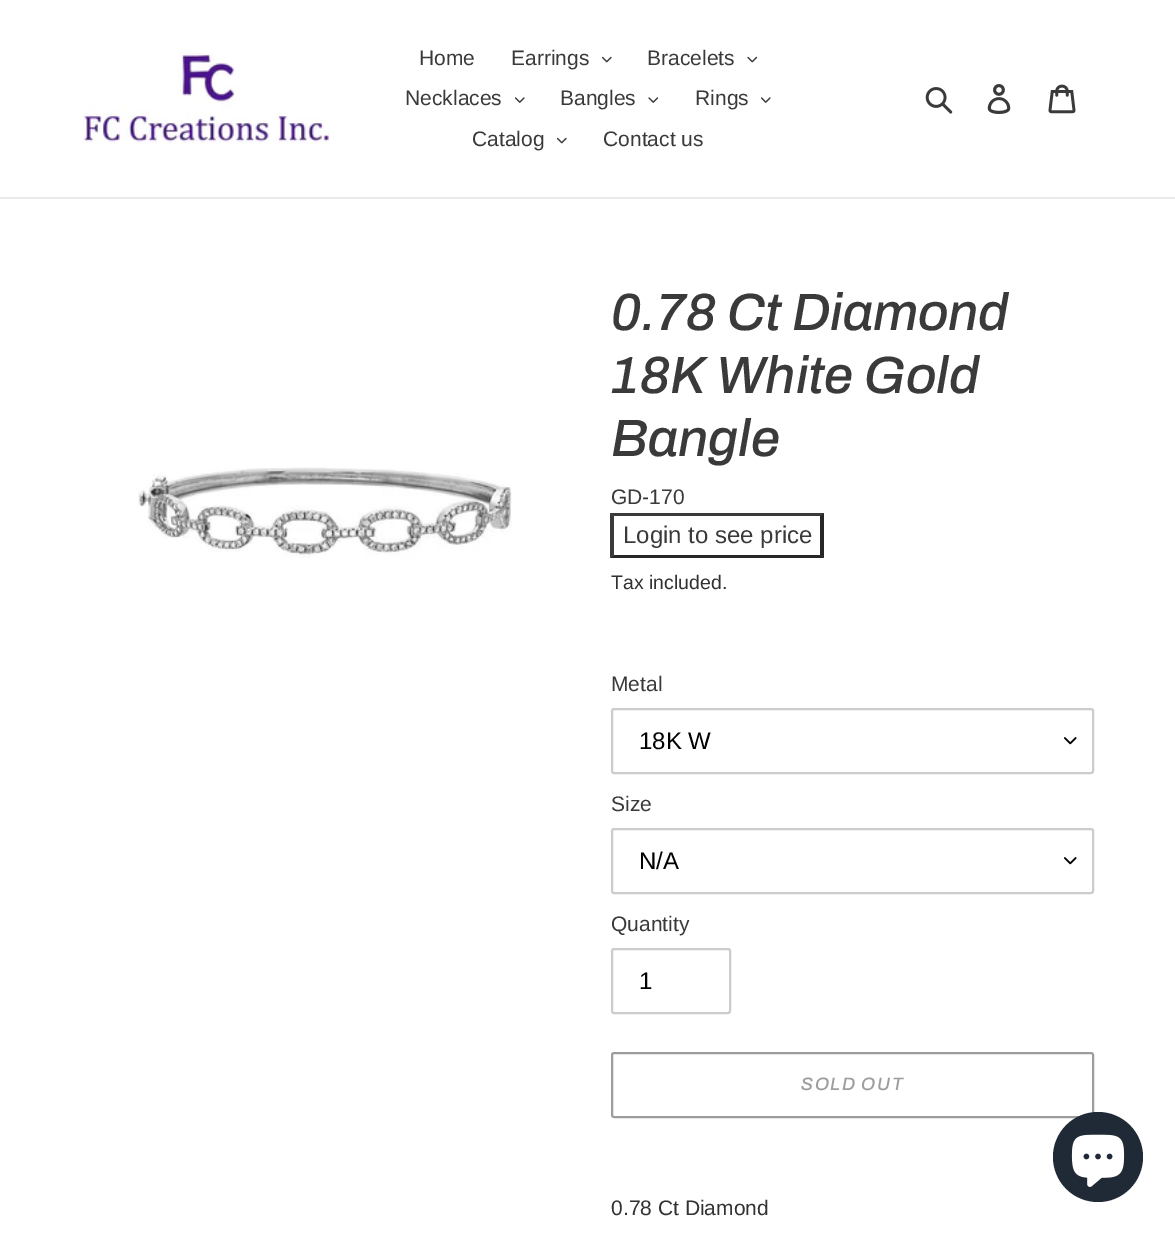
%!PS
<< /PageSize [1175 1233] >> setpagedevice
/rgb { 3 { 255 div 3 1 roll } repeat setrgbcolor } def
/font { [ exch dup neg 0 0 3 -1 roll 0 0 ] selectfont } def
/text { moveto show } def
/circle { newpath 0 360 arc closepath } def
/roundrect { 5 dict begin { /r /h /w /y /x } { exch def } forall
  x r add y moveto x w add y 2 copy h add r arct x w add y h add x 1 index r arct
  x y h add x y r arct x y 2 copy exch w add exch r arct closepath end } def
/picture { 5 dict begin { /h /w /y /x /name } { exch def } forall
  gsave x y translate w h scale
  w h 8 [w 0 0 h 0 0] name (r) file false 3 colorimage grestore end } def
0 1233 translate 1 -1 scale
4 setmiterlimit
255 255 255 rgb
0 0 1175 1233 rectfill
235 235 235 rgb
0 197 1175 2 rectfill
(img_01.rgb) 82 52 248 92 picture
(img_02.rgb) 602 56 10 7 picture
(img_03.rgb) 747 56 11 7 picture
(img_04.rgb) 515 97 10 6 picture
(img_05.rgb) 648 97 11 6 picture
(img_04.rgb) 761 97 10 6 picture
(img_02.rgb) 557 137 10 7 picture
(img_06.rgb) 925 87 28 27 picture
(img_07.rgb) 987 84 24 30 picture
(img_08.rgb) 1048 84 28 30 picture
(img_09.rgb) 138 467 374 91 picture
58 58 58 rgb
610 513 moveto 214 0 rlineto -4 3 rlineto -206 0 rlineto closepath fill
39 39 39 rgb
824 513 moveto 0 45 rlineto -4 -3 rlineto 0 -39 rlineto closepath fill
824 558 moveto -214 0 rlineto 4 -3 rlineto 206 0 rlineto closepath fill
58 58 58 rgb
610 558 moveto 0 -45 rlineto 4 3 rlineto 0 39 rlineto closepath fill
(img_10.rgb) 1064 737 13 8 picture
204 204 204 rgb
2 setlinewidth
612 709 481 64 2 roundrect stroke
(img_10.rgb) 1064 857 13 8 picture
612 829 481 64 2 roundrect stroke
612 949 118 64 2 roundrect stroke
157 157 157 rgb
612 1053 481 64 2 roundrect stroke
32 42 54 rgb
1098 1157 45 circle fill
(img_11.rgb) 1071 1134 54 53 picture
/LiberationSans-Regular 21 font
58 58 58 rgb
(Home) 419 65 text
(Earrings) 511 65 text
(Bracelets) 647 65 text
(Necklaces) 405 105 text
(Bangles) 560 105 text
(Rings) 695 105 text
(Catalog) 472 146 text
(Contact us) 603 146 text
/Archivo-MediumItalic 52.5 font
(0.78 Ct Diamond) 611 330 text
(18K White Gold) 611 393 text
(Bangle) 611 456 text
/LiberationSans-Regular 21 font
(GD-170) 611 504 text
/LiberationSans-Regular 24 font
(Login to see price) 623 543 text
/LiberationSans-Regular 19.5 font
51 50 50 rgb
(Tax included.) 611 589 text
/LiberationSans-Regular 21 font
58 58 58 rgb
(Metal) 611 691 text
/LiberationSans-Regular 24 font
0 0 0 rgb
(18K W) 639 749 text
/LiberationSans-Regular 21 font
58 58 58 rgb
(Size) 611 811 text
/LiberationSans-Regular 24 font
0 0 0 rgb
(N/A) 639 869 text
/LiberationSans-Regular 21 font
58 58 58 rgb
(Quantity) 611 931 text
/LiberationSans-Regular 24 font
0 0 0 rgb
(1) 639 989 text
/Archivo-MediumItalic 18 font
157 157 157 rgb
801 1090 moveto 1.5 0 (SOLD OUT) ashow
/LiberationSans-Regular 21 font
51 50 50 rgb
(0.78 Ct Diamond) 611 1215 text
showpage
